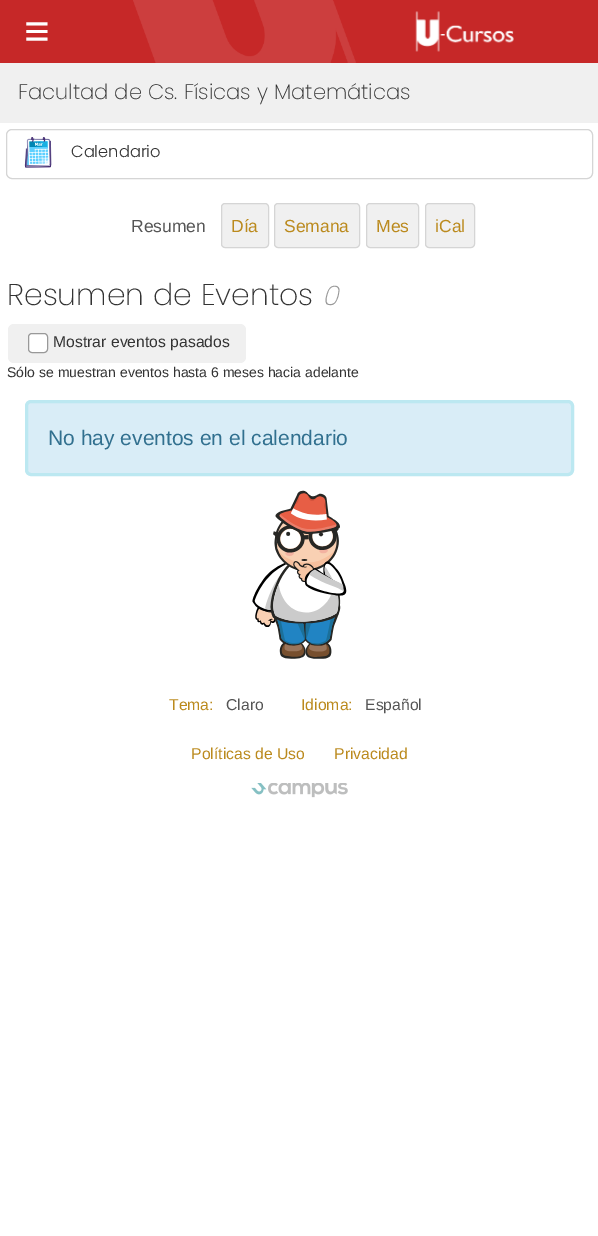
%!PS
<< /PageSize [598 1236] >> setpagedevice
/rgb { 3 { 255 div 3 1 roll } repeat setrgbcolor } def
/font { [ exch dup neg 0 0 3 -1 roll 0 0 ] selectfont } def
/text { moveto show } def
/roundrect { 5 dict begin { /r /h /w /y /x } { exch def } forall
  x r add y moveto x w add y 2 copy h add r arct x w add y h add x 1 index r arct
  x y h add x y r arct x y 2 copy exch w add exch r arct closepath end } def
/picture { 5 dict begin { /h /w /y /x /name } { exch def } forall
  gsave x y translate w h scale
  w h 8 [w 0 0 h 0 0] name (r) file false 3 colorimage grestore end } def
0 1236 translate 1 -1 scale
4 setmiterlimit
255 255 255 rgb
0 0 598 1236 rectfill
198 40 40 rgb
0 0 598 63 rectfill
(img_01.rgb) 133 0 223 63 picture
(img_02.rgb) 415 11 99 41 picture
240 240 240 rgb
0 63 598 60 rectfill
213 213 213 rgb
6.5 129.5 586 49 5.5 roundrect stroke
(img_03.rgb) 24 137 28 31 picture
240 240 240 rgb
221.5 203.5 47 44 3.5 roundrect gsave fill grestore
213 213 213 rgb
stroke
240 240 240 rgb
274.5 203.5 85 44 3.5 roundrect gsave fill grestore
213 213 213 rgb
stroke
240 240 240 rgb
366.5 203.5 52 44 3.5 roundrect gsave fill grestore
213 213 213 rgb
stroke
240 240 240 rgb
425.5 203.5 49 44 3.5 roundrect gsave fill grestore
213 213 213 rgb
stroke
240 240 240 rgb
8 324 238 39 6 roundrect fill
255 255 255 rgb
28.5 333.5 19 19 3.5 roundrect gsave fill grestore
153 153 153 rgb
stroke
(img_04.rgb) 252 490 95 169 picture
217 237 247 rgb
26.5 401.5 546 73 4.5 roundrect gsave fill grestore
188 232 241 rgb
3 setlinewidth
stroke
(img_05.rgb) 251 783 97 15 picture
/LiberationSans-Regular 44 font
255 255 255 rgb
(≡) 24 46 text
/Poppins-ExtraLight 21 font
51 51 51 rgb
(Facultad de Cs. Físicas y Matemáticas) 18 99 text
/Poppins-Light 16.25 font
(Calendario) 71 157 text
/LiberationSans-Regular 17.5 font
85 85 85 rgb
(Resumen) 131 232 text
187 138 29 rgb
(Día) 231 232 text
(Semana) 284 232 text
(Mes) 376 232 text
(iCal) 435 232 text
/Poppins-ExtraLight 30 font
51 51 51 rgb
(Resumen de Eventos) 7 305 text
/Poppins-ExtraLightItalic 27 font
153 153 153 rgb
(0) 322 305 text
/LiberationSans-Regular 15.75 font
51 51 51 rgb
(Mostrar eventos pasados) 53 347 text
/LiberationSans-Regular 14 font
(Sólo se muestran eventos hasta 6 meses hacia adelante) 7 377 text
/LiberationSans-Regular 21 font
49 112 143 rgb
(No hay eventos en el calendario) 48 445 text
/LiberationSans-Regular 15.75 font
187 138 29 rgb
(Tema:) 169 710 text
85 85 85 rgb
(Claro) 226 710 text
187 138 29 rgb
(Idioma:) 301 710 text
85 85 85 rgb
(Español) 365 710 text
187 138 29 rgb
(Políticas de Uso) 191 759 text
(Privacidad) 334 759 text
showpage
